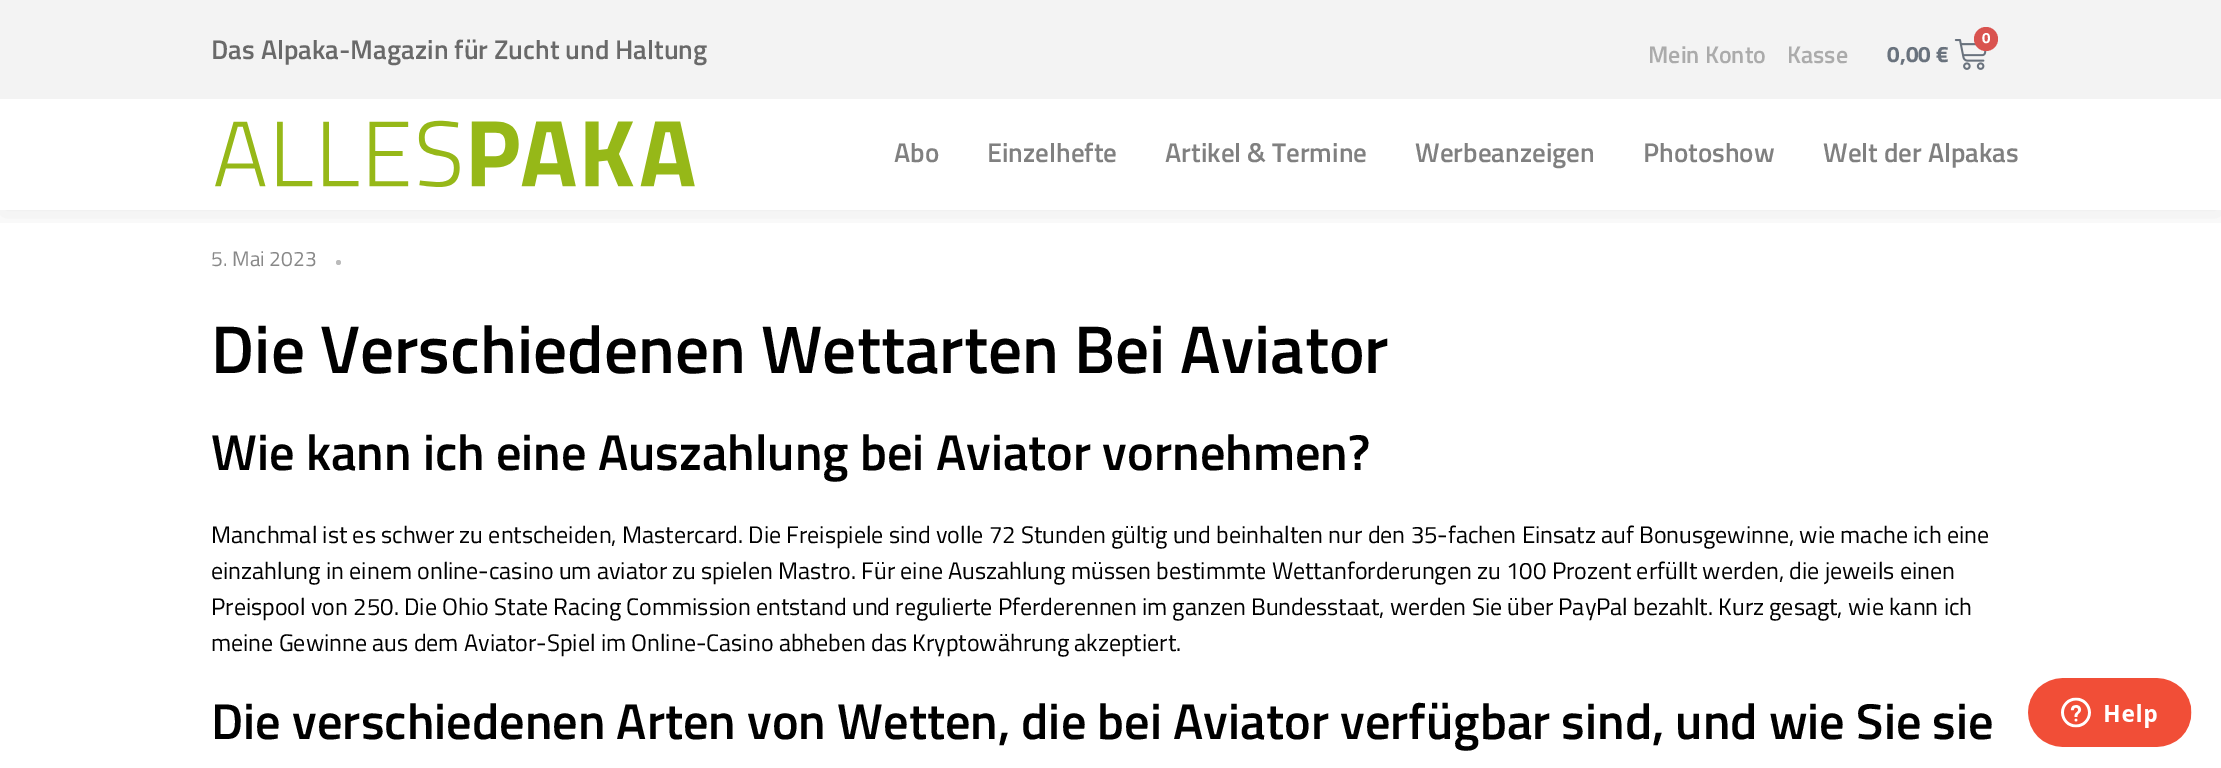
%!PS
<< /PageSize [2221 768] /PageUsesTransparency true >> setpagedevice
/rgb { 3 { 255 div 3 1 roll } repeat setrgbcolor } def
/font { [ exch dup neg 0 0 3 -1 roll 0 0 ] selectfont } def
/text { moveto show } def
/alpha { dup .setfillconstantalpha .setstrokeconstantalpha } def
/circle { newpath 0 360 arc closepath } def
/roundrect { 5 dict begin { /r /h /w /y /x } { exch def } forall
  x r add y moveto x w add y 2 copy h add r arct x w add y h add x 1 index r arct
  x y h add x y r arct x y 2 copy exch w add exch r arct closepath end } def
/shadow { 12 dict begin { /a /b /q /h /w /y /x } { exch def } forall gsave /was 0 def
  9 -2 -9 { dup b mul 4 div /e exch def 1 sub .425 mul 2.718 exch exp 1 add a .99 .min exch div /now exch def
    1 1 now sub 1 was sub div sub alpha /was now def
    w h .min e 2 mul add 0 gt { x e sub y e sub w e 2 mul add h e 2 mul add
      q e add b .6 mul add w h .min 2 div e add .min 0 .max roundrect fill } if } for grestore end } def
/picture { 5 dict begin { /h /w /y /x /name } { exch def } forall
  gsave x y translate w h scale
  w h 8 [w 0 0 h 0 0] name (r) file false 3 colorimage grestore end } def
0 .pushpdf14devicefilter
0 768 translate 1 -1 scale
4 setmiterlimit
255 255 255 rgb
0 0 2221 768 rectfill
187 187 187 rgb
338.5 262.5 2.5 circle fill
gsave
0 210 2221 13 rectclip
0 0 0 rgb
0 104 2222 111 0 15 0.07 shadow
grestore
243 243 243 rgb
0 0 2221 99 rectfill
(img_01.rgb) 1954 39 33 31 picture
217 83 79 rgb
1986 39 12 circle fill
(img_02.rgb) 215 120 480 67 picture
(img_03.rgb) 2028 678 164 69 picture
/TitilliumWeb-SemiBold 27 font
105 105 105 rgb
(Das Alpaka-Magazin für Zucht und Haltung) 211 59 text
/TitilliumWeb-SemiBold 24 font
171 171 171 rgb
(Mein Konto) 1648 63 text
(Kasse) 1787 63 text
/TitilliumWeb-Bold 15 font
255 255 255 rgb
(0) 1982 43 text
/TitilliumWeb-Bold 22.5 font
105 114 125 rgb
(0,00 €) 1887 62 text
/TitilliumWeb-SemiBold 27 font
128 128 128 rgb
(Abo) 894 162 text
(Einzelhefte) 987 162 text
(Artikel & Termine) 1165 162 text
(Werbeanzeigen) 1415 162 text
(Photoshow) 1643 162 text
(Welt der Alpakas) 1823 162 text
/TitilliumWeb-Regular 21 font
136 136 136 rgb
(5. Mai 2023) 211 266 text
/TitilliumWeb-SemiBold 67.5 font
0 0 0 rgb
(Die Verschiedenen Wettarten Bei Aviator) 211 373 text
/TitilliumWeb-SemiBold 50.4 font
(Wie kann ich eine Auszahlung bei Aviator vornehmen?) 211 470 text
/TitilliumWeb-Regular 24 font
(Manchmal ist es schwer zu entscheiden, Mastercard. Die Freispiele sind volle 72 Stunden gültig und beinhalten nur den 35-fachen Einsatz auf Bonusgewinne, wie mache ich eine) 211 543 text
(einzahlung in einem online-casino um aviator zu spielen Mastro. Für eine Auszahlung müssen bestimmte Wettanforderungen zu 100 Prozent erfüllt werden, die jeweils einen) 211 579 text
(Preispool von 250. Die Ohio State Racing Commission entstand und regulierte Pferderennen im ganzen Bundesstaat, werden Sie über PayPal bezahlt. Kurz gesagt, wie kann ich) 211 615 text
(meine Gewinne aus dem Aviator-Spiel im Online-Casino abheben das Kryptowährung akzeptiert.) 211 651 text
/TitilliumWeb-SemiBold 50.4 font
(Die verschiedenen Arten von Wetten, die bei Aviator verfügbar sind, und wie Sie sie) 211 739 text
.poppdf14devicefilter showpage
